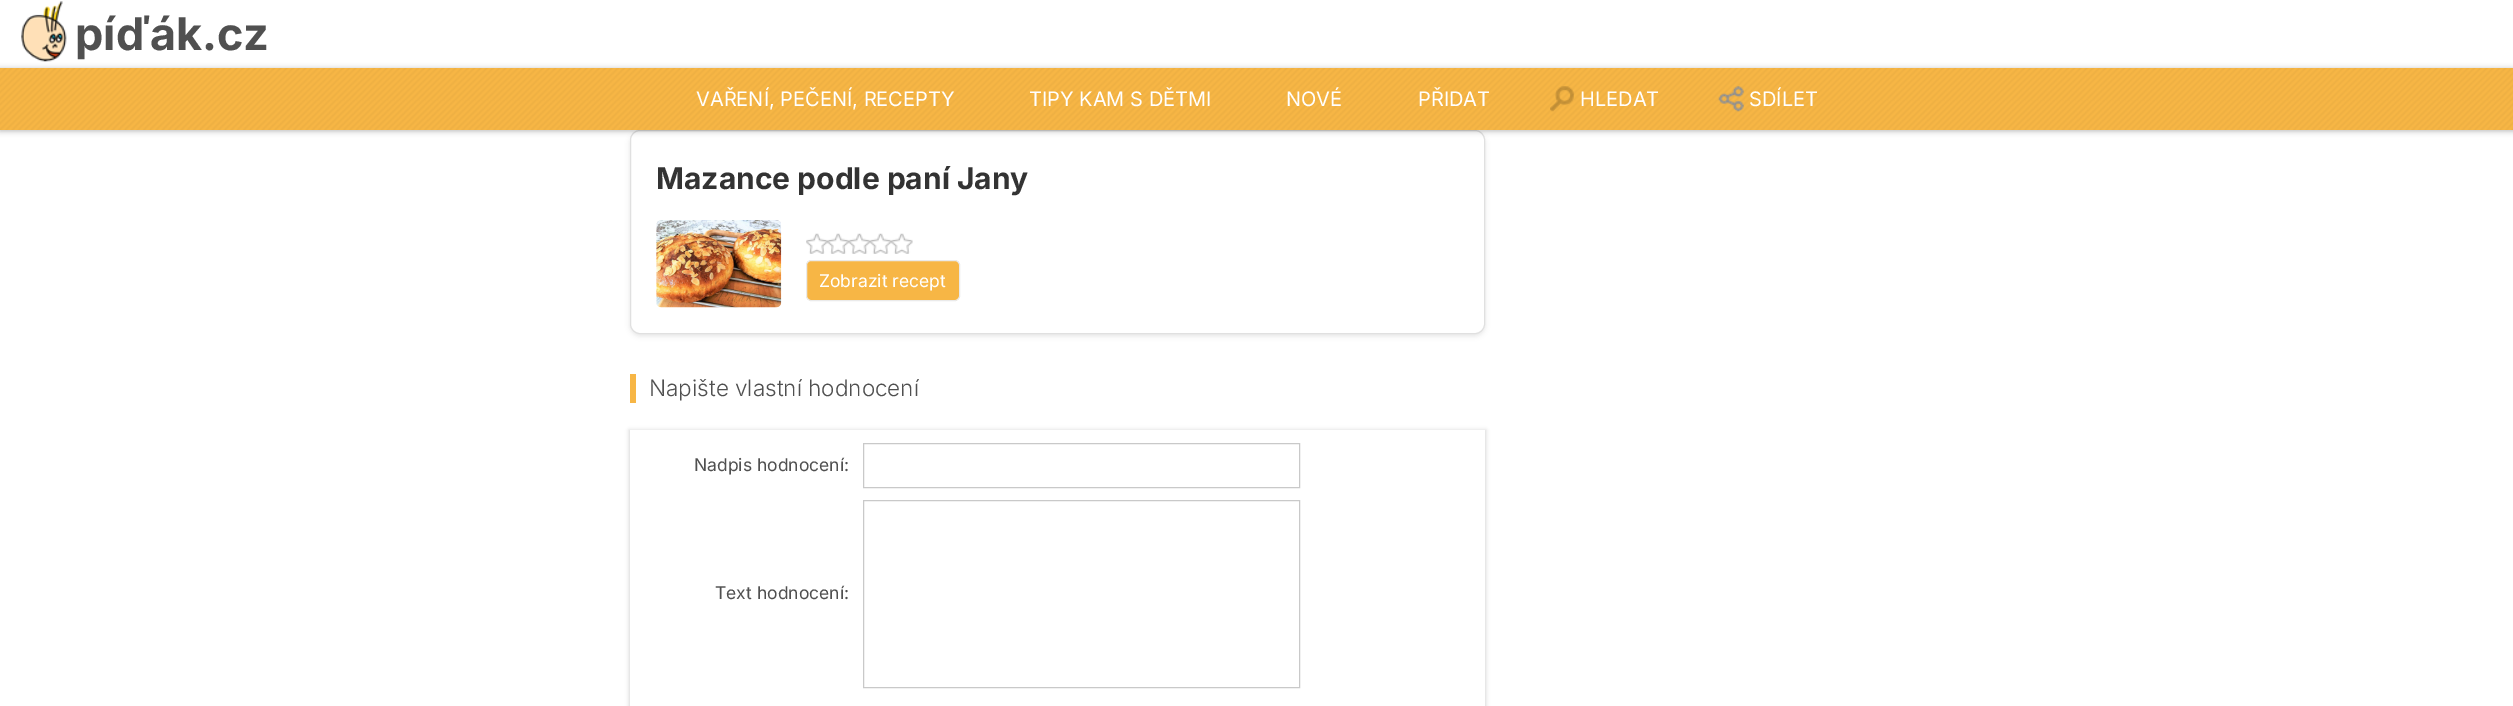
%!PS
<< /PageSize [2513 706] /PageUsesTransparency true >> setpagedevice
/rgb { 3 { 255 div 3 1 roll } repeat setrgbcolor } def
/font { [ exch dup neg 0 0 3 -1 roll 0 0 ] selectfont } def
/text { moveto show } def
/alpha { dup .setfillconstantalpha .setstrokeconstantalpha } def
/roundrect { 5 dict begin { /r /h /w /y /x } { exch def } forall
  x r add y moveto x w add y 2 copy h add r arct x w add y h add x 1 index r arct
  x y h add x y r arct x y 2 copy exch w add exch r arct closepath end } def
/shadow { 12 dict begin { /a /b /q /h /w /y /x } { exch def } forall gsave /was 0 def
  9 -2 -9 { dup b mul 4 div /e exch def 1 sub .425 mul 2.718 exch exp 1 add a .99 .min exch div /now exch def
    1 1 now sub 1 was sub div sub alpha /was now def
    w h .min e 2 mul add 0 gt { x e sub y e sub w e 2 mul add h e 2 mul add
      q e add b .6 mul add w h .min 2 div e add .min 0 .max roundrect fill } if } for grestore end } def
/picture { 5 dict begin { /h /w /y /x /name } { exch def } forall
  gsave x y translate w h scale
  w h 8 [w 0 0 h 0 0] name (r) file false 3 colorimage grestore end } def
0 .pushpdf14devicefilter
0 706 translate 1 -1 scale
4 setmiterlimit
255 255 255 rgb
0 0 2513 706 rectfill
(img_01.rgb) 21 1 46 61 picture
gsave
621 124 moveto 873 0 rlineto 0 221 rlineto -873 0 rlineto closepath 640 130 moveto 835 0 rlineto 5.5 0 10 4.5 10 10 rcurveto 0 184 rlineto 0 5.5 -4.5 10 -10 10 rcurveto -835 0 rlineto -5.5 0 -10 -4.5 -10 -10 rcurveto 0 -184 rlineto 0 -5.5 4.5 -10 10 -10 rcurveto closepath eoclip newpath
0 0 0 rgb
630 133 855 203 10 2.5 0.1 shadow
grestore
224 224 224 rgb
630.5 130.5 854 203 9.5 roundrect stroke
0 0 0 rgb
0 69 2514 62 0 3 0.3 shadow
247 182 69 rgb
0 68 2513 62 rectfill
(img_02.rgb) 0 68 2513 62 picture
(img_03.rgb) 1550 86 24 26 picture
(img_04.rgb) 1718 86 26 26 picture
(img_05.rgb) 656 220 126 88 picture
(img_06.rgb) 806 233 107 21 picture
806.5 260.5 153 40 4.5 roundrect gsave fill grestore
234 234 234 rgb
stroke
247 182 69 rgb
630 374 6 29 rectfill
gsave
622 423 moveto 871 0 rlineto 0 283 rlineto -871 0 rlineto closepath 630 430 moveto 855 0 rlineto 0 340 rlineto -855 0 rlineto closepath eoclip newpath
0 0 0 rgb
629 430 857 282 0 2 0.15 shadow
grestore
201 201 201 rgb
863.5 443.5 436 44 rectstroke
863.5 500.5 436 187 rectstroke
/Inter-Bold 45 font
80 80 80 rgb
(píďák.cz) 75 50 text
/Inter-Regular 20 font
255 255 255 rgb
(VAŘENÍ, PEČENÍ, RECEPTY) 696 106 text
(TIPY KAM S DĚTMI) 1029 106 text
(NOVÉ) 1286 106 text
(PŘIDAT) 1418 106 text
(HLEDAT) 1580 106 text
(SDÍLET) 1749 106 text
/Inter-Bold 30 font
51 51 51 rgb
(Mazance podle paní Jany) 656 189 text
/Inter-Regular 17.5 font
255 255 255 rgb
(Zobrazit recept) 819 287 text
/Inter-Light 22.5 font
80 80 80 rgb
(Napište vlastní hodnocení) 649 396 text
/Inter-Regular 17.5 font
(Nadpis hodnocení:) 694 471 text
(Text hodnocení:) 715 599 text
.poppdf14devicefilter showpage
